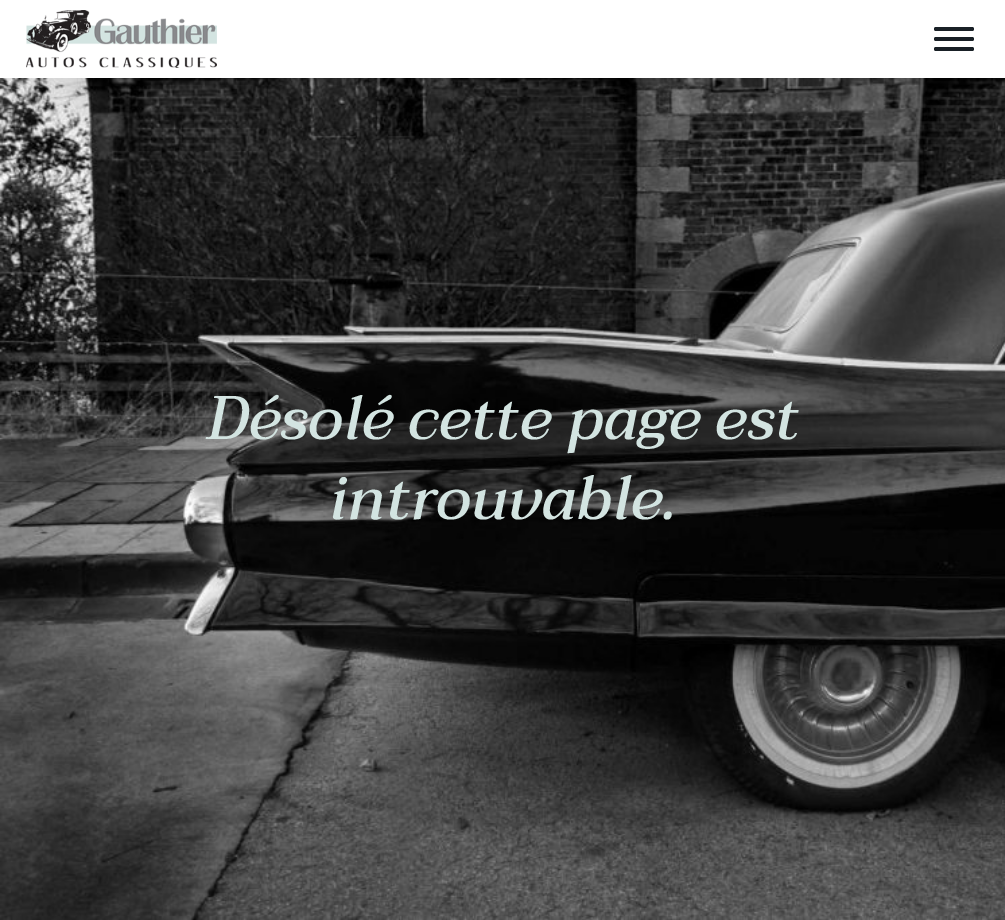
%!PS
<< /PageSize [1005 920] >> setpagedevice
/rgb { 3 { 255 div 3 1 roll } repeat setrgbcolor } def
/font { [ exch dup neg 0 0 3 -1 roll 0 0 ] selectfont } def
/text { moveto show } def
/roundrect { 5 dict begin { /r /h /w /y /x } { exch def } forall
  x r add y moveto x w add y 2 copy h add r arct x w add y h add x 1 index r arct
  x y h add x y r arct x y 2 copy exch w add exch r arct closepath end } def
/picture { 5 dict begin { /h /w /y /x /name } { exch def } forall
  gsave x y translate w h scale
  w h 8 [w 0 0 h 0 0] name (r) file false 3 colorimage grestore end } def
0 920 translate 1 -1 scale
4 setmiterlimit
255 255 255 rgb
0 0 1005 920 rectfill
(img_01.rgb) 26 10 191 58 picture
25 32 38 rgb
934 27 40 4 2 roundrect fill
934 37 40 4 2 roundrect fill
934 47 40 4 2 roundrect fill
(img_02.rgb) 0 78 1005 842 picture
/Taviraj-MediumItalic 61.5 font
211 228 225 rgb
(Désolé cette page est) 207 439 text
(introuvable.) 329 519 text
showpage
